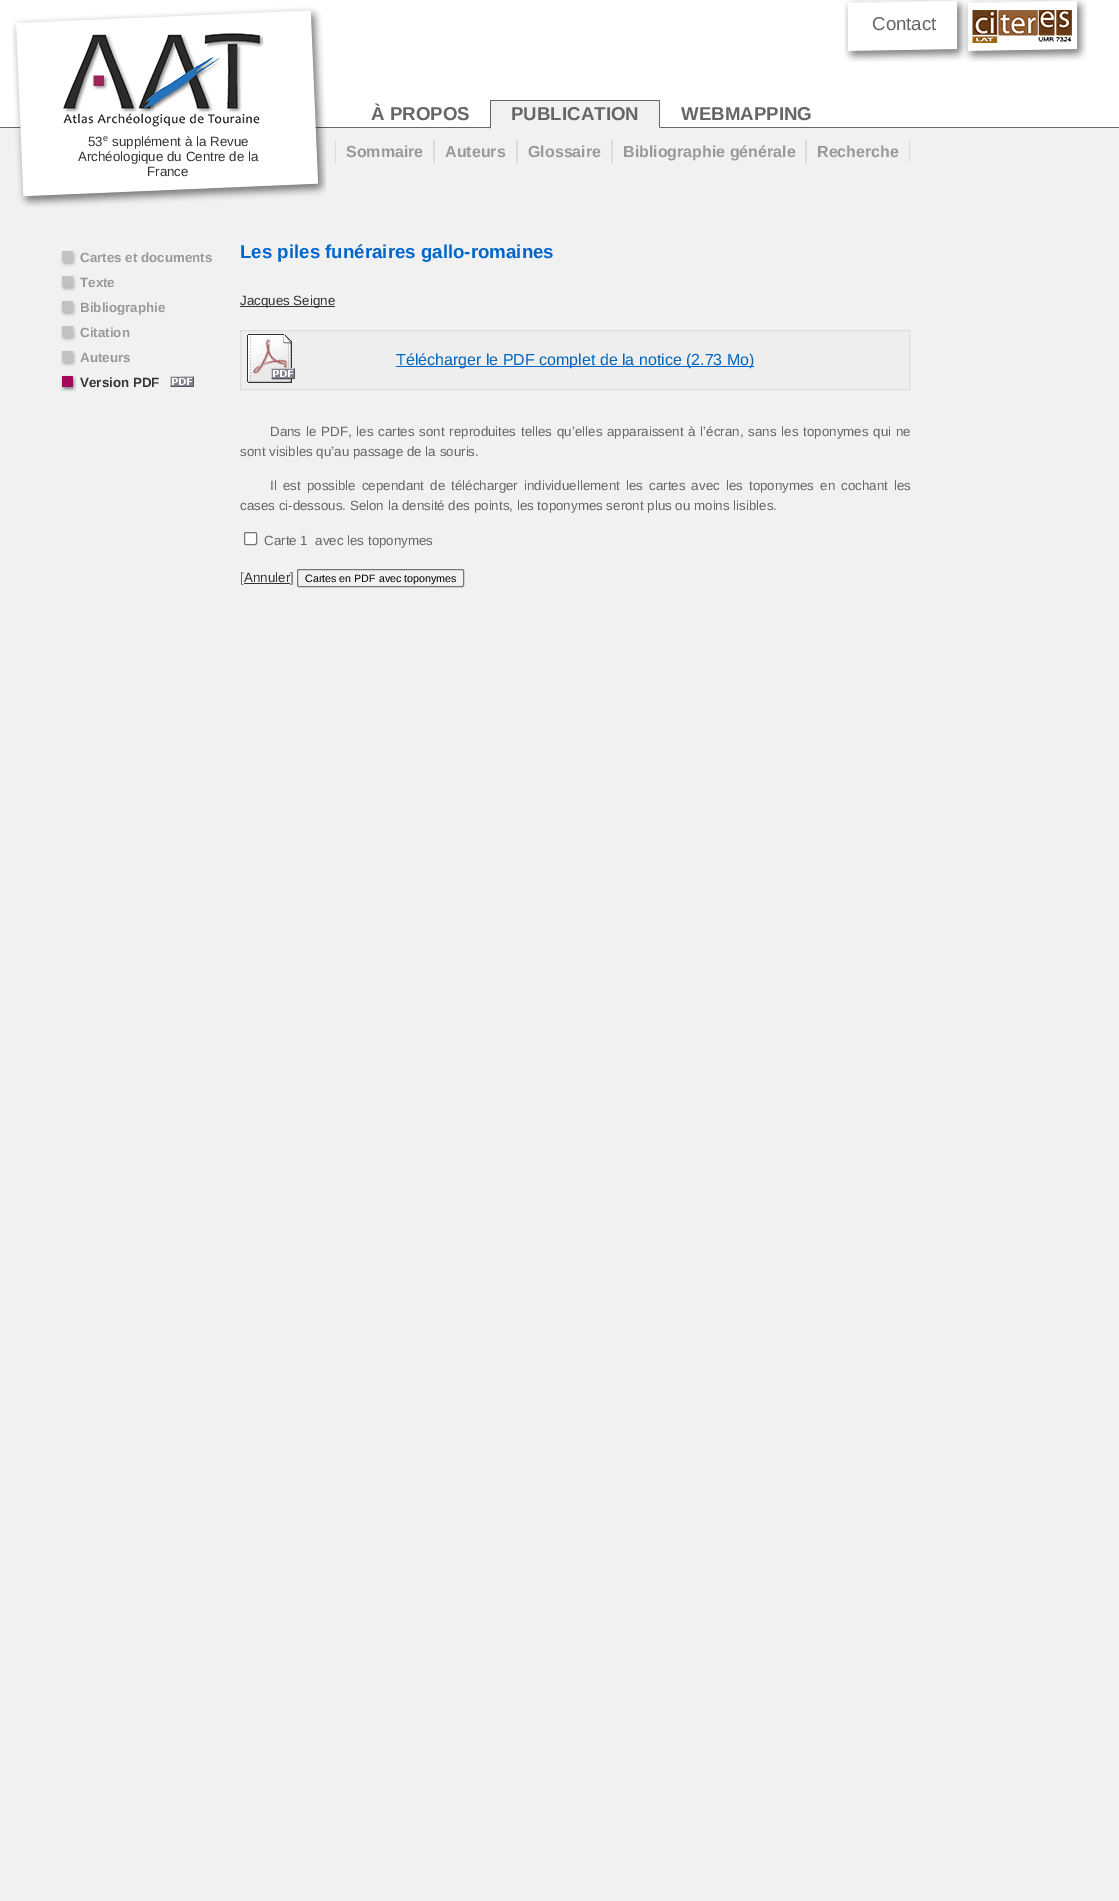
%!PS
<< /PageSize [1119 1901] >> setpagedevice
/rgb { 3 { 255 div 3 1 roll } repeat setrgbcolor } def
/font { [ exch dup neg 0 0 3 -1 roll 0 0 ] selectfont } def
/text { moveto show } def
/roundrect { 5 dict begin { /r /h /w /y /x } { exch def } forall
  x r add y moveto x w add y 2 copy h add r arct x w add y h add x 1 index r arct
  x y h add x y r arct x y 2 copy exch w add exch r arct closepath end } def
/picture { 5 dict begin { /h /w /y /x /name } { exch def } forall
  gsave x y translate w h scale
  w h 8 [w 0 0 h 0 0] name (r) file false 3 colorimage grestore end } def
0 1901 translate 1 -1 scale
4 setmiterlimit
241 241 241 rgb
0 0 1119 1901 rectfill
255 255 255 rgb
0 0 1119 127 rectfill
(img_01.rgb) 844 0 123 62 picture
(img_02.rgb) 964 0 123 62 picture
(img_03.rgb) 972 10 101 33 picture
102 102 102 rgb
0 127 1119 1 rectfill
241 241 241 rgb
491 101 168 26 rectfill
102 102 102 rgb
490 100 170 1 rectfill
660 100 moveto 0 29 rlineto -1 -2 rlineto 0 -26 rlineto closepath fill
241 241 241 rgb
660 129 moveto -170 0 rlineto 1 -2 rlineto 168 0 rlineto closepath fill
102 102 102 rgb
490 129 moveto 0 -29 rlineto 1 1 rlineto 0 26 rlineto closepath fill
(img_04.rgb) 12 7 314 200 picture
(img_05.rgb) 63 33 201 94 picture
221 221 221 rgb
433 140 2 24 rectfill
241 241 241 rgb
433 163 1 1 rectfill
221 221 221 rgb
335 140 1 24 rectfill
516 140 2 24 rectfill
241 241 241 rgb
516 163 1 1 rectfill
221 221 221 rgb
611 140 2 24 rectfill
241 241 241 rgb
611 163 1 1 rectfill
221 221 221 rgb
805 140 2 24 rectfill
241 241 241 rgb
805 163 1 1 rectfill
221 221 221 rgb
909 140 1 24 rectfill
241 241 241 rgb
909 163 1 1 rectfill
(img_06.rgb) 60 250 17 17 picture
(img_06.rgb) 60 275 17 17 picture
(img_06.rgb) 60 300 17 17 picture
(img_06.rgb) 60 325 17 17 picture
(img_06.rgb) 60 350 17 17 picture
(img_07.rgb) 60 375 17 17 picture
(img_08.rgb) 170 376 24 11 picture
51 51 51 rgb
240 306 95 1 rectfill
238 238 238 rgb
241 331 668 58 rectfill
(img_09.rgb) 247 334 508 49 picture
221 221 221 rgb
240.5 330.5 669 59 rectstroke
0 102 204 rgb
457 366 297 1 rectfill
255 255 255 rgb
244.5 532.5 12 12 1.5 roundrect gsave fill grestore
118 118 118 rgb
stroke
51 51 51 rgb
244 583 46 1 rectfill
118 118 118 rgb
297.5 569.5 166 17 1.5 roundrect stroke
/LiberationSans-Regular 18.7 font
102 102 102 rgb
(Contact) 872 30 text
/LiberationSans-Bold 18.7 font
(À PROPOS) 371 120 text
(PUBLICATION) 511 120 text
(WEBMAPPING) 681 120 text
/LiberationSans-Regular 13.35 font
51 51 51 rgb
(53) 88 146 text
/LiberationSans-Regular 9 font
(e) 103 141 text
/LiberationSans-Regular 13.35 font
(supplément à la Revue) 112 146 text
(Archéologique du Centre de la) 78 161 text
(France) 147 176 text
/LiberationSans-Bold 16 font
153 153 153 rgb
(Sommaire) 346 157 text
(Auteurs) 445 157 text
(Glossaire) 528 157 text
(Bibliographie générale) 623 157 text
(Recherche) 817 157 text
/LiberationSans-Bold 13.35 font
(Cartes et documents) 80 262 text
(Texte) 80 287 text
(Bibliographie) 80 312 text
(Citation) 80 337 text
(Auteurs) 80 362 text
51 51 51 rgb
(Version PDF) 80 387 text
/LiberationSans-Bold 18.7 font
0 102 204 rgb
(Les piles funéraires gallo-romaines) 240 258 text
/LiberationSans-Regular 13.35 font
51 51 51 rgb
(Jacques Seigne) 240 305 text
/LiberationSans-Regular 16 font
0 102 187 rgb
(Télécharger le PDF complet de la notice \(2.73 Mo\)) 396 365 text
/LiberationSans-Regular 13.35 font
102 102 102 rgb
270 436 moveto 1.1 0 32 (Dans le PDF, les cartes sont reproduites telles qu’elles apparaissent à l’écran, sans les toponymes qui ne) widthshow
(sont visibles qu’au passage de la souris.) 240 456 text
270 490 moveto 2.4 0 32 (Il est possible cependant de télécharger individuellement les cartes avec les toponymes en cochant les) widthshow
(cases ci-dessous. Selon la densité des points, les toponymes seront plus ou moins lisibles.) 240 510 text
(Carte 1  avec les toponymes) 264 545 text
([) 240 582 text
51 51 51 rgb
(Annuler) 244 582 text
102 102 102 rgb
(]) 290 582 text
/LiberationSans-Regular 10.7 font
0 0 0 rgb
(Cartes en PDF avec toponymes) 305 582 text
showpage
